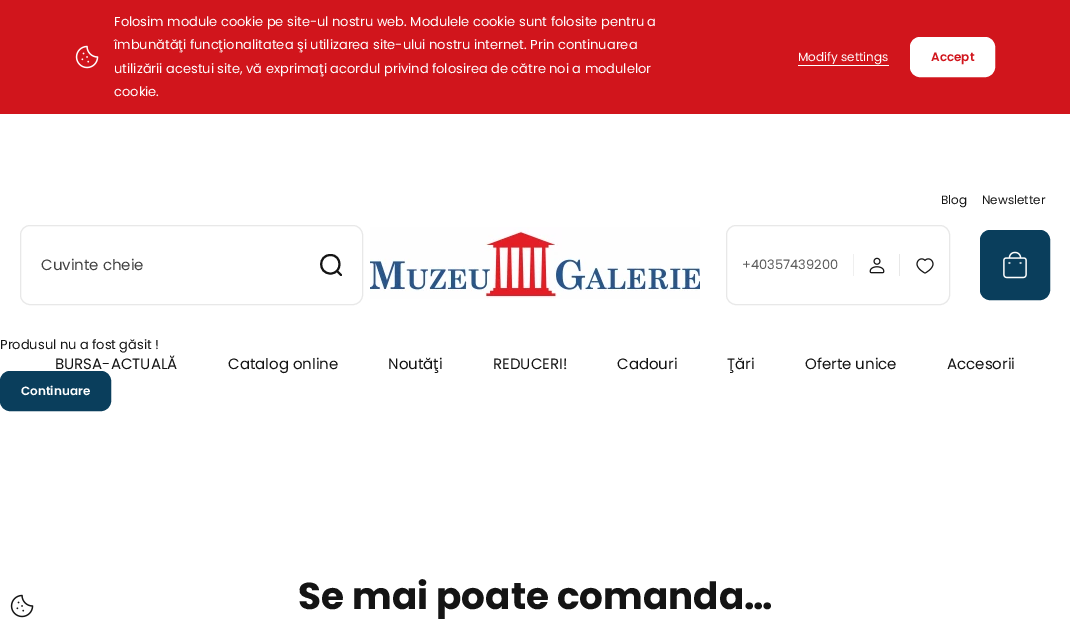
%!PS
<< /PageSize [1070 636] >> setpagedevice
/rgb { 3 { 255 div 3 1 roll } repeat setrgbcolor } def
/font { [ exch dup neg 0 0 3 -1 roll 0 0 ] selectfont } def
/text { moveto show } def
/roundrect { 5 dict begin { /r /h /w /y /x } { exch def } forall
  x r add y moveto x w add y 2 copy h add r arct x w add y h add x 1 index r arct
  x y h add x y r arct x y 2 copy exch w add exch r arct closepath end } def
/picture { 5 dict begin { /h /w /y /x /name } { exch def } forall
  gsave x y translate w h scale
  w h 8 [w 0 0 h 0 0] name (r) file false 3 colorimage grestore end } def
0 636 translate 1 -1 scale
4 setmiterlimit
255 255 255 rgb
0 0 1070 636 rectfill
209 21 28 rgb
0 0 1070 114 rectfill
(img_01.rgb) 75 45 24 24 picture
255 255 255 rgb
798 65 91 1 rectfill
910.5 37.5 84 39 9.5 roundrect gsave fill grestore
stroke
232 232 232 rgb
20.5 225.5 342 79 9.5 roundrect stroke
20 20 20 rgb
2 setlinewidth
1 setlinecap
1 setlinejoin
341 275 moveto -4 -4 rlineto 330.5 273.5 moveto -12.5 0 -12.5 -18.5 0 -18.5 rcurveto 12 0 12 18.5 0 18.5 rcurveto closepath stroke
(img_02.rgb) 370 227 330 72 picture
232 232 232 rgb
1 setlinewidth
0 setlinecap
0 setlinejoin
726.5 225.5 223 79 9.5 roundrect stroke
239 239 239 rgb
853 254 1 22 rectfill
(img_03.rgb) 869 257 16 17 picture
232 232 232 rgb
899 254 1 22 rectfill
(img_04.rgb) 916 258 18 16 picture
10 62 92 rgb
980.5 230.5 69 69 9.5 roundrect gsave fill grestore
stroke
(img_05.rgb) 1003 251 24 28 picture
0.5 371.5 110 39 9.5 roundrect gsave fill grestore
stroke
(img_06.rgb) 10 594 24 24 picture
/Poppins-Regular 13 font
255 255 255 rgb
(Folosim module cookie pe site-ul nostru web. Modulele cookie sunt folosite pentru a) 114 26 text
(îmbunătăţi funcţionalitatea şi utilizarea site-ului nostru internet. Prin continuarea) 114 49 text
(utilizării acestui site, vă exprimaţi acordul privind folosirea de către noi a modulelor) 114 73 text
(cookie.) 114 96 text
/Poppins-Regular 12 font
(Modify settings) 798 61 text
/Poppins-SemiBold 12 font
209 21 28 rgb
(Accept) 931 61 text
/Poppins-Regular 12 font
20 20 20 rgb
(Blog) 941 204 text
(Newsletter) 982 204 text
/Poppins-Regular 15 font
67 67 67 rgb
(Cuvinte cheie) 41 270 text
/Poppins-Regular 13 font
91 91 91 rgb
(+40357439200) 742 269 text
/Poppins-Regular 15 font
20 20 20 rgb
(BURSA-ACTUALĂ) 55 369 text
(Catalog online) 228 369 text
(Noutăţi) 388 369 text
(REDUCERI!) 493 369 text
(Cadouri) 617 369 text
(Ţări) 727 369 text
(Oferte unice) 805 369 text
(Accesorii) 947 369 text
/Poppins-Regular 13 font
(Produsul nu a fost găsit !) 0 349 text
/Poppins-SemiBold 12 font
255 255 255 rgb
(Continuare) 21 395 text
/Poppins-Bold 37.4 font
20 20 20 rgb
(Se mai poate comanda…) 298 609 text
showpage
